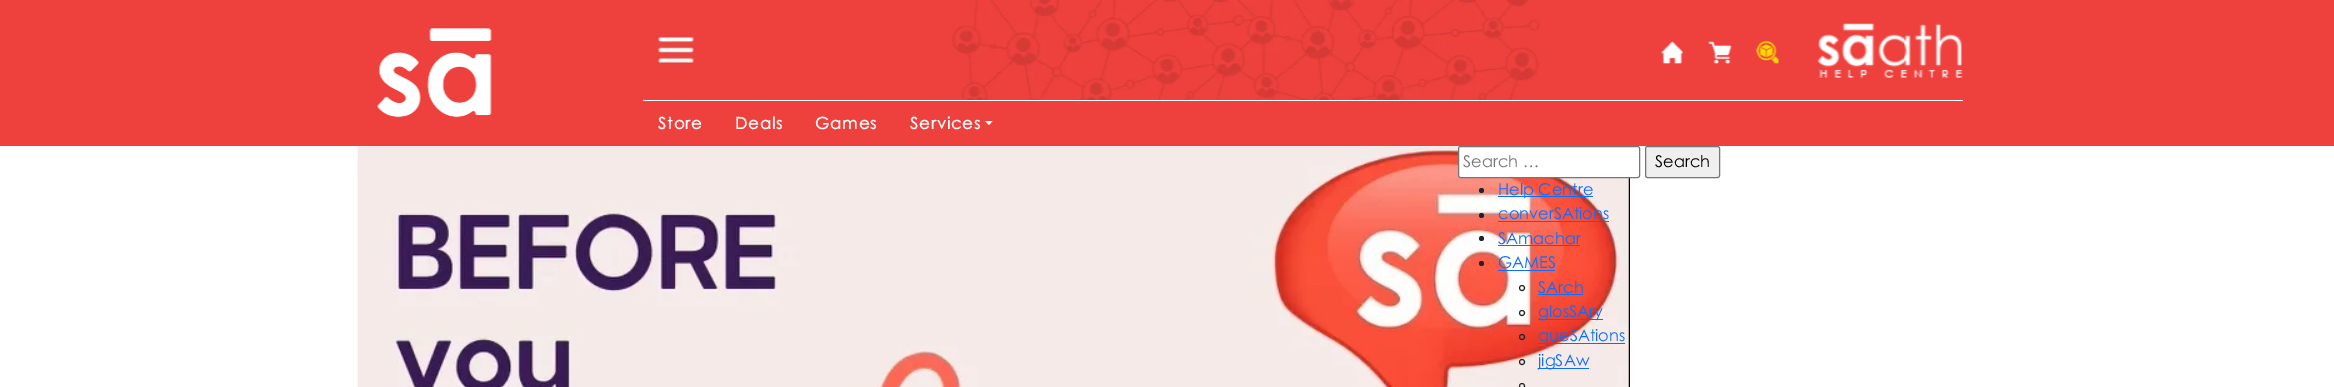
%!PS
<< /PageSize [2334 387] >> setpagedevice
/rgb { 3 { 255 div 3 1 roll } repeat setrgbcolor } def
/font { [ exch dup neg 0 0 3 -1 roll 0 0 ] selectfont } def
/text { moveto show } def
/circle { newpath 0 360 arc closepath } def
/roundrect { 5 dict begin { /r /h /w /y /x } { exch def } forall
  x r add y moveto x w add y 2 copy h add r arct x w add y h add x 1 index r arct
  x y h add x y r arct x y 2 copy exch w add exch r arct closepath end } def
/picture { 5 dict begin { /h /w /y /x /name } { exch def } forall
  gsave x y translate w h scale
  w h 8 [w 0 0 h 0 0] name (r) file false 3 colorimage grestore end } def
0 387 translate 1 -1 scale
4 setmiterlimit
255 255 255 rgb
0 0 2334 387 rectfill
238 65 61 rgb
0 0 2334 146 rectfill
(img_01.rgb) 377 28 115 90 picture
255 255 255 rgb
643 100 1320 1 rectfill
(img_02.rgb) 657 34 38 31 picture
(img_03.rgb) 952 0 588 100 picture
(img_04.rgb) 1661 41 22 23 picture
(img_05.rgb) 1708 41 24 23 picture
(img_06.rgb) 1756 40 23 24 picture
(img_07.rgb) 1817 23 146 55 picture
985 121 moveto 7.5 0 rlineto -3.5 4 rlineto closepath fill
(img_08.rgb) 357 146 1273 241 picture
1458.5 146.5 181 31 2 roundrect gsave fill grestore
118 118 118 rgb
stroke
239 239 239 rgb
1645.5 146.5 74 31 2 roundrect gsave fill grestore
118 118 118 rgb
stroke
33 37 41 rgb
1481.5 190.5 2.5 circle fill
13 110 253 rgb
1498 196 95 1 rectfill
33 37 41 rgb
1481.5 215.5 2.5 circle fill
13 110 253 rgb
1498 221 111 1 rectfill
33 37 41 rgb
1481.5 238.5 2.5 circle fill
13 110 253 rgb
1498 245 82 1 rectfill
33 37 41 rgb
1481.5 263.5 2.5 circle fill
13 110 253 rgb
1498 270 57 1 rectfill
33 37 41 rgb
1522 288 2.5 circle stroke
13 110 253 rgb
1538 294 45 1 rectfill
33 37 41 rgb
1522 313 2.5 circle stroke
13 110 253 rgb
1538 319 65 1 rectfill
33 37 41 rgb
1522 337 2.5 circle stroke
13 110 253 rgb
1538 343 87 1 rectfill
33 37 41 rgb
1522 362 2.5 circle stroke
13 110 253 rgb
1538 368 51 1 rectfill
33 37 41 rgb
1522 386 2.5 circle stroke
/CenturyGothic-Bold 16.25 font
255 255 255 rgb
658 129 moveto 1 0 (Store) ashow
735 129 moveto 1 0 (Deals) ashow
815 129 moveto 1 0 (Games) ashow
910 129 moveto 1 0 (Services) ashow
/CenturyGothic-Regular 16.25 font
117 117 117 rgb
(Search …) 1463 167 text
0 0 0 rgb
(Search) 1655 167 text
13 110 253 rgb
(Help Centre) 1498 195 text
(converSAtions) 1498 219 text
(SAmachar) 1498 244 text
(GAMES) 1498 268 text
(SArch) 1538 293 text
(glosSAry) 1538 317 text
(queSAtions) 1538 341 text
(jigSAw) 1538 366 text
showpage
